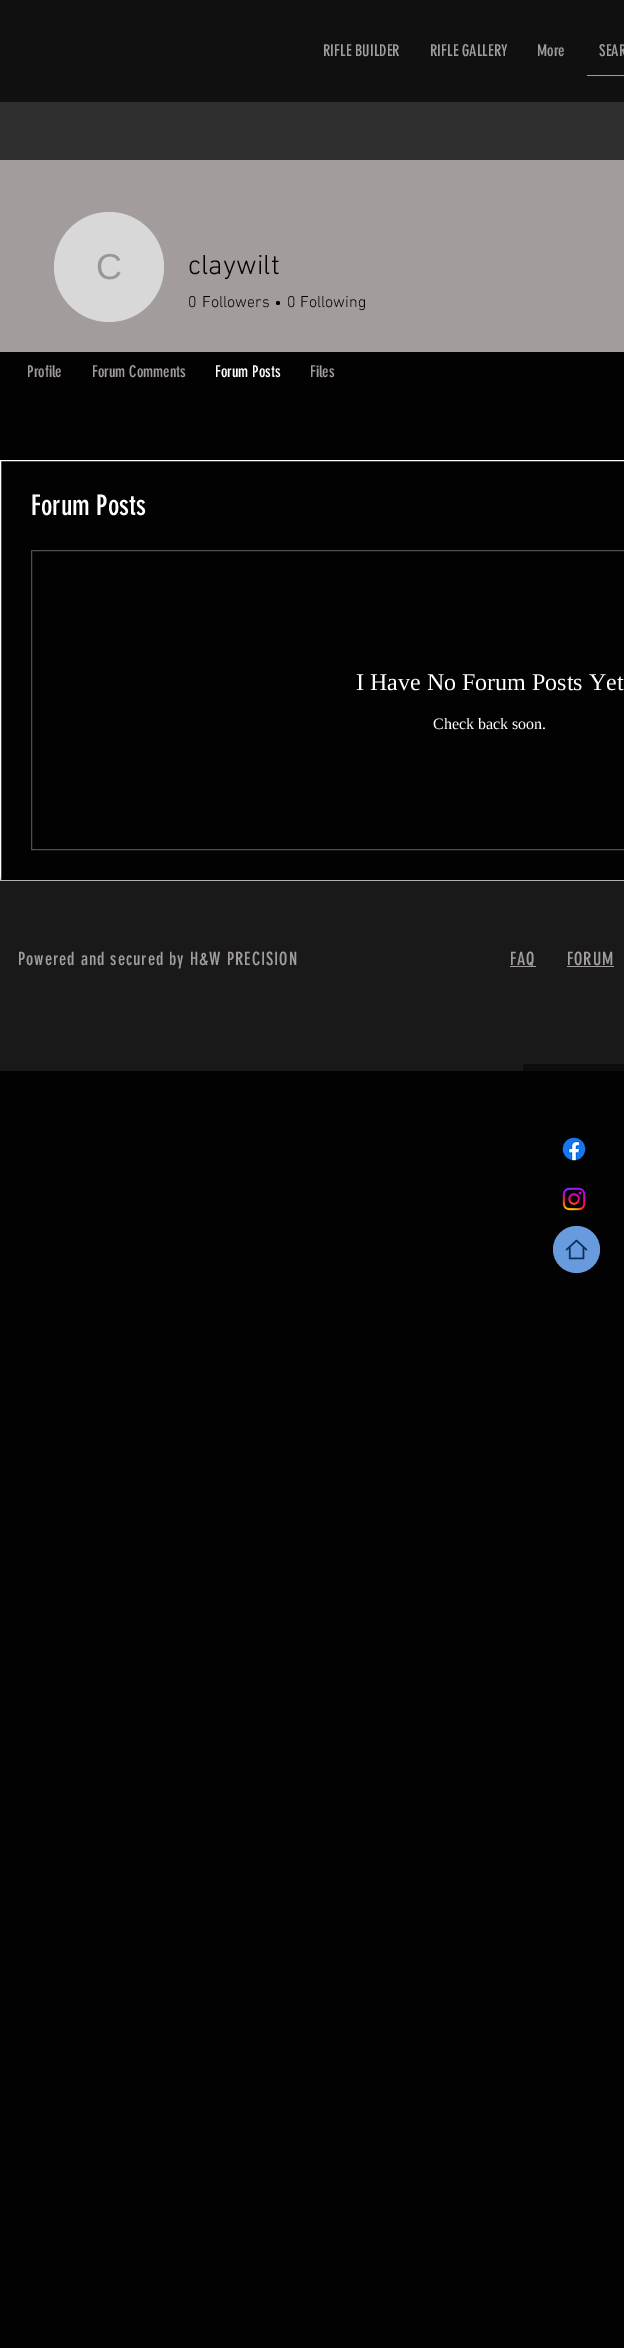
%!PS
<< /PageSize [624 2348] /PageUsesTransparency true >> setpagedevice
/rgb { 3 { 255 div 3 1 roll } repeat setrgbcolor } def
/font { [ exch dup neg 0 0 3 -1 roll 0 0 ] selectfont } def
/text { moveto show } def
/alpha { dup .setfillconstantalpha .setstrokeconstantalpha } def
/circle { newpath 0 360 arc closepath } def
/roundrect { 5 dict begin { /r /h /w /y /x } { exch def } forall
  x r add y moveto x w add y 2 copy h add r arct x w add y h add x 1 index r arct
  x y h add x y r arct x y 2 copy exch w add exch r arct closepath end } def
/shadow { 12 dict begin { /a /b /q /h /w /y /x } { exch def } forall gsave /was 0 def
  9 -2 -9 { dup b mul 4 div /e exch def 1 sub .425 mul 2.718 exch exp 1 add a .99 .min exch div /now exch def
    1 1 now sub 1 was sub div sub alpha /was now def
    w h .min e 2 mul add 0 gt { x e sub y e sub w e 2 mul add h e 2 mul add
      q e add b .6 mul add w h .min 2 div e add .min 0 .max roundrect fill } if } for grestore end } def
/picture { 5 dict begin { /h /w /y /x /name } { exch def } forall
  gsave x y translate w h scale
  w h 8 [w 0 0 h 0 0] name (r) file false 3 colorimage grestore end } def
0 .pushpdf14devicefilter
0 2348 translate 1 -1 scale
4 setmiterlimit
2 2 2 rgb
0 0 624 2348 rectfill
16 16 16 rgb
0 0 624 102 rectfill
162 156 156 rgb
587 75 37 1 rectfill
0 160 624 192 rectfill
48 47 47 rgb
0 102 624 58 rectfill
216 216 216 rgb
109 267 55 circle fill
2 2 2 rgb
278 303 2 circle fill
255 255 255 rgb
0.5 460.5 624 420 rectstroke
78 78 78 rgb
31.5 550.5 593 299 rectstroke
2 2 2 rgb
0 881 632 190 0 2.5 0.7 shadow
26 25 25 rgb
0 881 624 190 rectfill
162 156 156 rgb
510 966 26 1 rectfill
567 966 47 1 rectfill
0.5 alpha
2 2 2 rgb
523 1064 101 7 rectfill
1 alpha
(img_01.rgb) 562 1137 24 24 picture
(img_02.rgb) 562 1187 24 24 picture
104 154 222 rgb
576.5 1249.5 23.5 circle fill
(img_03.rgb) 565 1239 23 21 picture
/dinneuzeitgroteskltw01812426-Regular 16 font
162 156 156 rgb
(RIFLE BUILDER) 323 56 text
(RIFLE GALLERY) 430 56 text
(More) 537 56 text
(SEAR) 599 56 text
/LiberationSans-Regular 36 font
151 151 151 rgb
(C) 96 279 text
/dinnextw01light-Light 28 font
2 2 2 rgb
(claywilt) 188 274 text
/dinnextw01light-Light 16 font
(0) 188 307 text
(Followers) 202 307 text
(0) 287 307 text
(Following) 300 307 text
/dinneuzeitgroteskltw01812426-Regular 16 font
162 156 156 rgb
(Profile) 27 377 text
(Forum Comments) 92 377 text
255 255 255 rgb
(Forum Posts) 215 377 text
162 156 156 rgb
(Files) 310 377 text
/dinneuzeitgroteskltw01812426-Regular 28 font
255 255 255 rgb
(Forum Posts) 31 515 text
/LiberationSerif-Regular 24 font
(I Have No Forum Posts Yet) 356 690 text
/LiberationSerif-Regular 16 font
(Check back soon.) 433 729 text
/dinneuzeitgroteskltw01812426-Regular 18 font
162 156 156 rgb
18 965 moveto 0.9 0 (Powered and secured by H&W PRECISION) ashow
510 965 moveto 0.9 0 (FAQ) ashow
567 965 moveto 0.9 0 (FORUM) ashow
.poppdf14devicefilter showpage
